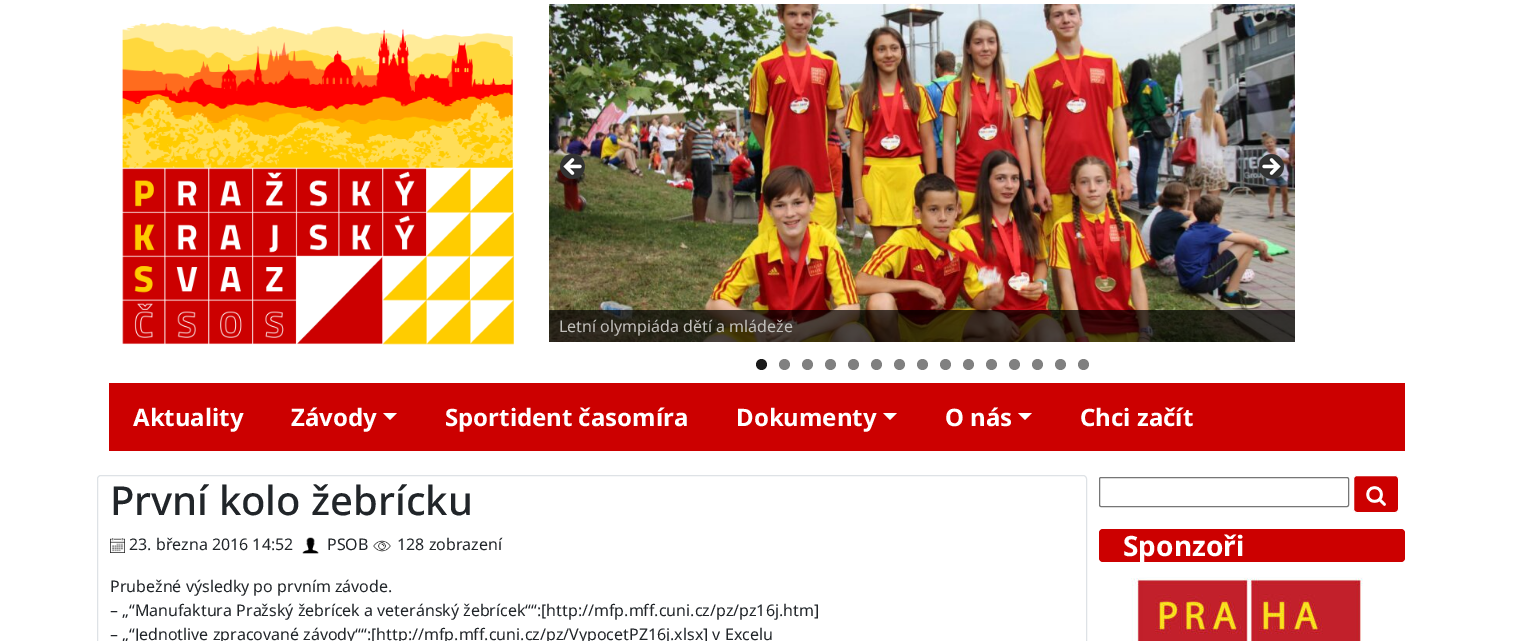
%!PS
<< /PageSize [1514 641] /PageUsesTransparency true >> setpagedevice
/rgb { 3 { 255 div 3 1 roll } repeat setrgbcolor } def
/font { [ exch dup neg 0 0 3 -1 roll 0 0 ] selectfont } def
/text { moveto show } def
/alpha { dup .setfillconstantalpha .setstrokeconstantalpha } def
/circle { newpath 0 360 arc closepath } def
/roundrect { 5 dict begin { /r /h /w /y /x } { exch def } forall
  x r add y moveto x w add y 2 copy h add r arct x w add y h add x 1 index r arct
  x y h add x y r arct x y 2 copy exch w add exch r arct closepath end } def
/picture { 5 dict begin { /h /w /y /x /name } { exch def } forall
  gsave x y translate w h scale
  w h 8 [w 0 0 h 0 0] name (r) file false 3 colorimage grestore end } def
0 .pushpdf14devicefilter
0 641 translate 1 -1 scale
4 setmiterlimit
255 255 255 rgb
0 0 1514 641 rectfill
(img_01.rgb) 122 22 392 323 picture
(img_04.rgb) 549 4 746 338 picture
(img_02.rgb) 560 154 25 25 picture
(img_03.rgb) 1259 154 25 25 picture
0.7 alpha
0 0 0 rgb
549 310 746 32 rectfill
1 alpha
26 26 26 rgb
761.5 364.5 5.5 circle fill
128 128 128 rgb
784.5 364.5 5.5 circle fill
807.5 364.5 5.5 circle fill
830.5 364.5 5.5 circle fill
853.5 364.5 5.5 circle fill
876.5 364.5 5.5 circle fill
899.5 364.5 5.5 circle fill
922.5 364.5 5.5 circle fill
945.5 364.5 5.5 circle fill
968.5 364.5 5.5 circle fill
991.5 364.5 5.5 circle fill
1014.5 364.5 5.5 circle fill
1037.5 364.5 5.5 circle fill
1060.5 364.5 5.5 circle fill
1083.5 364.5 5.5 circle fill
204 0 0 rgb
109 383 1296 68 rectfill
255 255 255 rgb
383 413 moveto 14 0 rlineto -7 7 rlineto closepath fill
883 413 moveto 14 0 rlineto -7 7 rlineto closepath fill
1018 413 moveto 14 0 rlineto -7 7 rlineto closepath fill
222 226 230 rgb
97.5 475.5 989 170 3.5 roundrect stroke
(img_05.rgb) 110 538 15 15 picture
(img_06.rgb) 302 537 17 17 picture
(img_07.rgb) 373 540 18 12 picture
118 118 118 rgb
1099.5 477.5 249 29 1.5 roundrect stroke
204 0 0 rgb
1353.5 475.5 45 37 3.5 roundrect gsave fill grestore
255 255 255 rgb
stroke
(img_08.rgb) 1366 486 20 20 picture
204 0 0 rgb
1099 529 306 33 4 roundrect fill
(img_09.rgb) 1131 577 232 64 picture
/NotoSans-Regular 16 font
193 191 187 rgb
(Letní olympiáda dětí a mládeže) 559 332 text
/NotoSans-Bold 24 font
255 255 255 rgb
(Aktuality) 133 426 text
(Závody) 291 426 text
(Sportident časomíra) 445 426 text
(Dokumenty) 736 426 text
(O nás) 945 426 text
(Chci začít) 1080 426 text
/NotoSans-Medium 40 font
33 37 41 rgb
(První kolo žebrícku) 110 515 text
/NotoSans-Regular 16 font
(23. března 2016 14:52) 129 550 text
(PSOB) 327 550 text
(128 zobrazení) 397 550 text
(Prubežné výsledky po prvním závode.) 110 592 text
(– „“Manufaktura Pražský žebrícek a veteránský žebrícek““:[http://mfp.mff.cuni.cz/pz/pz16j.htm]) 110 616 text
(– „“Jednotlive zpracované závody““:[http://mfp.mff.cuni.cz/pz/VypocetPZ16j.xlsx] v Excelu) 110 640 text
/NotoSans-Bold 28 font
255 255 255 rgb
(Sponzoři) 1123 556 text
.poppdf14devicefilter showpage
